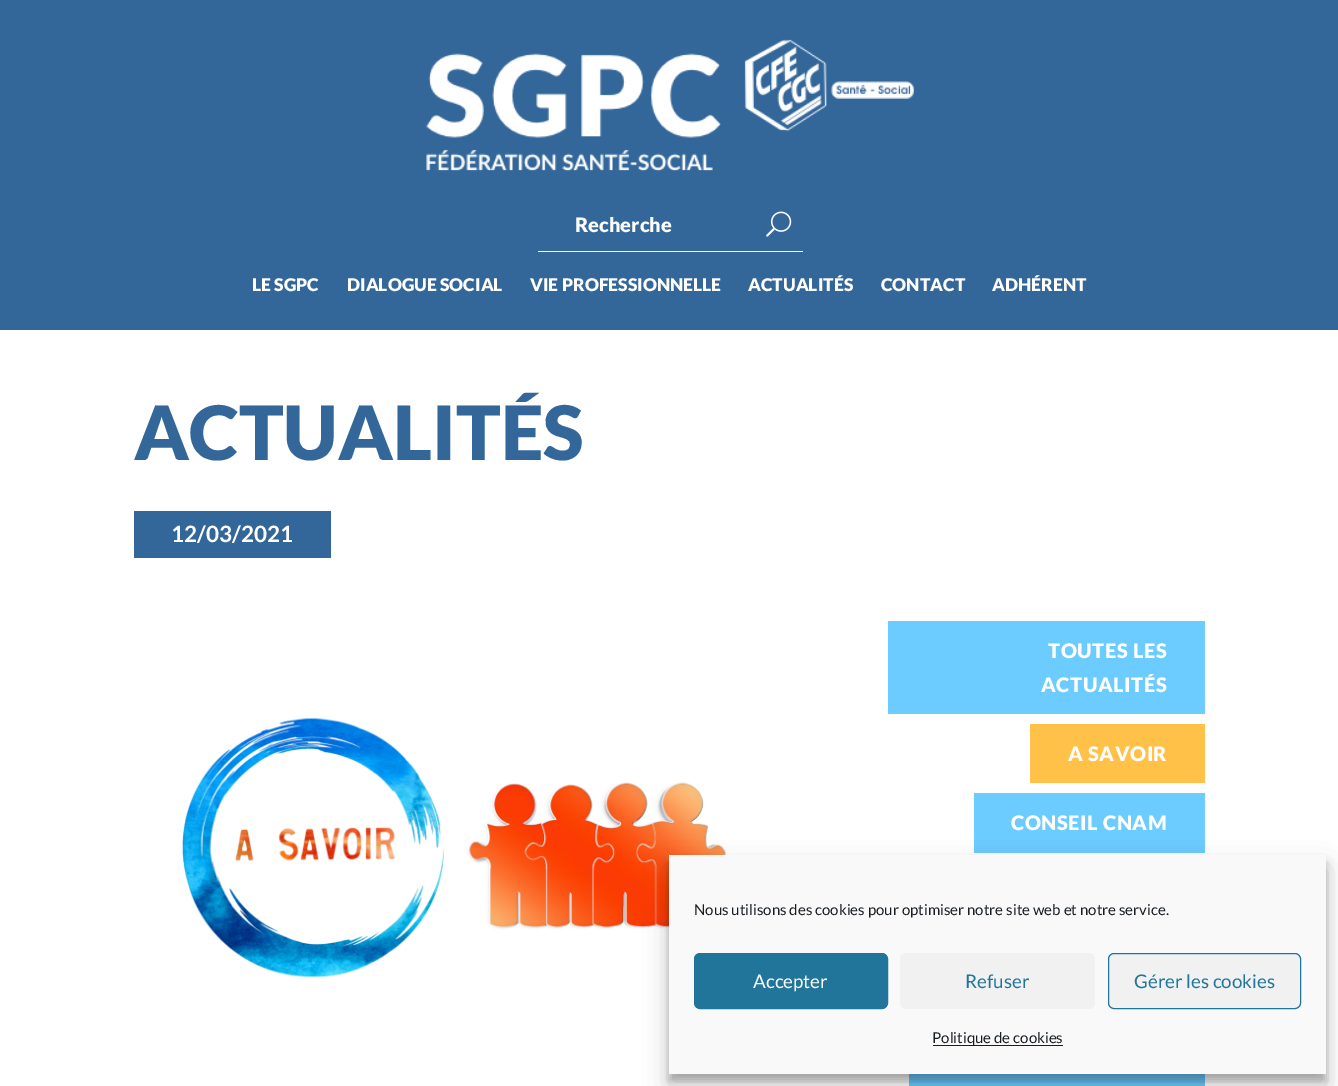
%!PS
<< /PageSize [1338 1086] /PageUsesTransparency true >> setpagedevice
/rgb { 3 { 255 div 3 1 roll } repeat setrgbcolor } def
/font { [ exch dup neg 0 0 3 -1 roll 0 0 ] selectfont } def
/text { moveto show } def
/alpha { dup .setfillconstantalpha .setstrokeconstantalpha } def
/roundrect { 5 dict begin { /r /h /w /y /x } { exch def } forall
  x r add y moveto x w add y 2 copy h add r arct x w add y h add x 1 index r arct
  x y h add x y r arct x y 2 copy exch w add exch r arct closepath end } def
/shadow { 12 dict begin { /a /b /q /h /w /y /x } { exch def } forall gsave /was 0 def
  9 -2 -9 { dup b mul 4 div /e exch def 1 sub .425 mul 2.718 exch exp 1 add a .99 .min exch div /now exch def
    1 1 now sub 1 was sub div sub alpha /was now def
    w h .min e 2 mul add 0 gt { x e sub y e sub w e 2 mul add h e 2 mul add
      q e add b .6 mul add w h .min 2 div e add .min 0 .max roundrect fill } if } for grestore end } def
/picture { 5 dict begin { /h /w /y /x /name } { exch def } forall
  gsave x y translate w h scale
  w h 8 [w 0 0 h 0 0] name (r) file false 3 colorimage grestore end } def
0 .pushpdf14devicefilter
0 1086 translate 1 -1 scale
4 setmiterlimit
255 255 255 rgb
0 0 1338 1086 rectfill
51 102 153 rgb
0 0 1338 330 rectfill
(img_01.rgb) 426 39 488 133 picture
255 255 255 rgb
538 251 265 1 rectfill
(img_02.rgb) 766 211 26 26 picture
51 102 153 rgb
134 511 197 47 rectfill
(img_03.rgb) 182 717 544 261 picture
108 203 255 rgb
888 621 317 93 rectfill
255 193 71 rgb
1030 724 175 59 rectfill
108 203 255 rgb
974 793 231 60 rectfill
909 1074 296 12 rectfill
0 0 0 rgb
669 863 657 218 0 4 0.23 shadow
669 868 657 218 0 12.5 0.19 shadow
249 249 249 rgb
669 855 657 219 rectfill
33 117 155 rgb
694.5 953.5 193 55 5.5 roundrect gsave fill grestore
stroke
241 241 241 rgb
900 953 195 56 6 roundrect fill
1108.5 953.5 192 55 5.5 roundrect gsave fill grestore
33 117 155 rgb
stroke
25 30 35 rgb
933 1045 130 1 rectfill
/Lato-Black 20 font
255 255 255 rgb
(Recherche) 575 232 text
/Lato-Black 17.5 font
(LE SGPC) 252 291 text
(DIALOGUE SOCIAL) 347 291 text
(VIE PROFESSIONNELLE) 530 291 text
(ACTUALITÉS) 748 291 text
(CONTACT) 881 291 text
(ADHÉRENT) 992 291 text
/Lato-Black 75 font
51 102 153 rgb
(ACTUALITÉS) 134 460 text
/Lato-Bold 22.5 font
255 255 255 rgb
(12/03/2021) 171 542 text
/Lato-Black 20 font
1048 658 moveto 0.6 0 (TOUTES LES) ashow
1041 692 moveto 0.6 0 (ACTUALITÉS) ashow
1068 761 moveto 0.6 0 (A SAVOIR) ashow
1011 830 moveto 0.6 0 (CONSEIL CNAM) ashow
/Lato-Regular 15 font
25 30 35 rgb
(Nous utilisons des cookies pour optimiser notre site web et notre service.) 694 915 text
/Lato-Regular 18.75 font
255 255 255 rgb
(Accepter) 753 988 text
33 117 155 rgb
(Refuser) 965 988 text
(Gérer les cookies) 1134 988 text
/Lato-Regular 15 font
25 30 35 rgb
(Politique de cookies) 932 1043 text
.poppdf14devicefilter showpage
